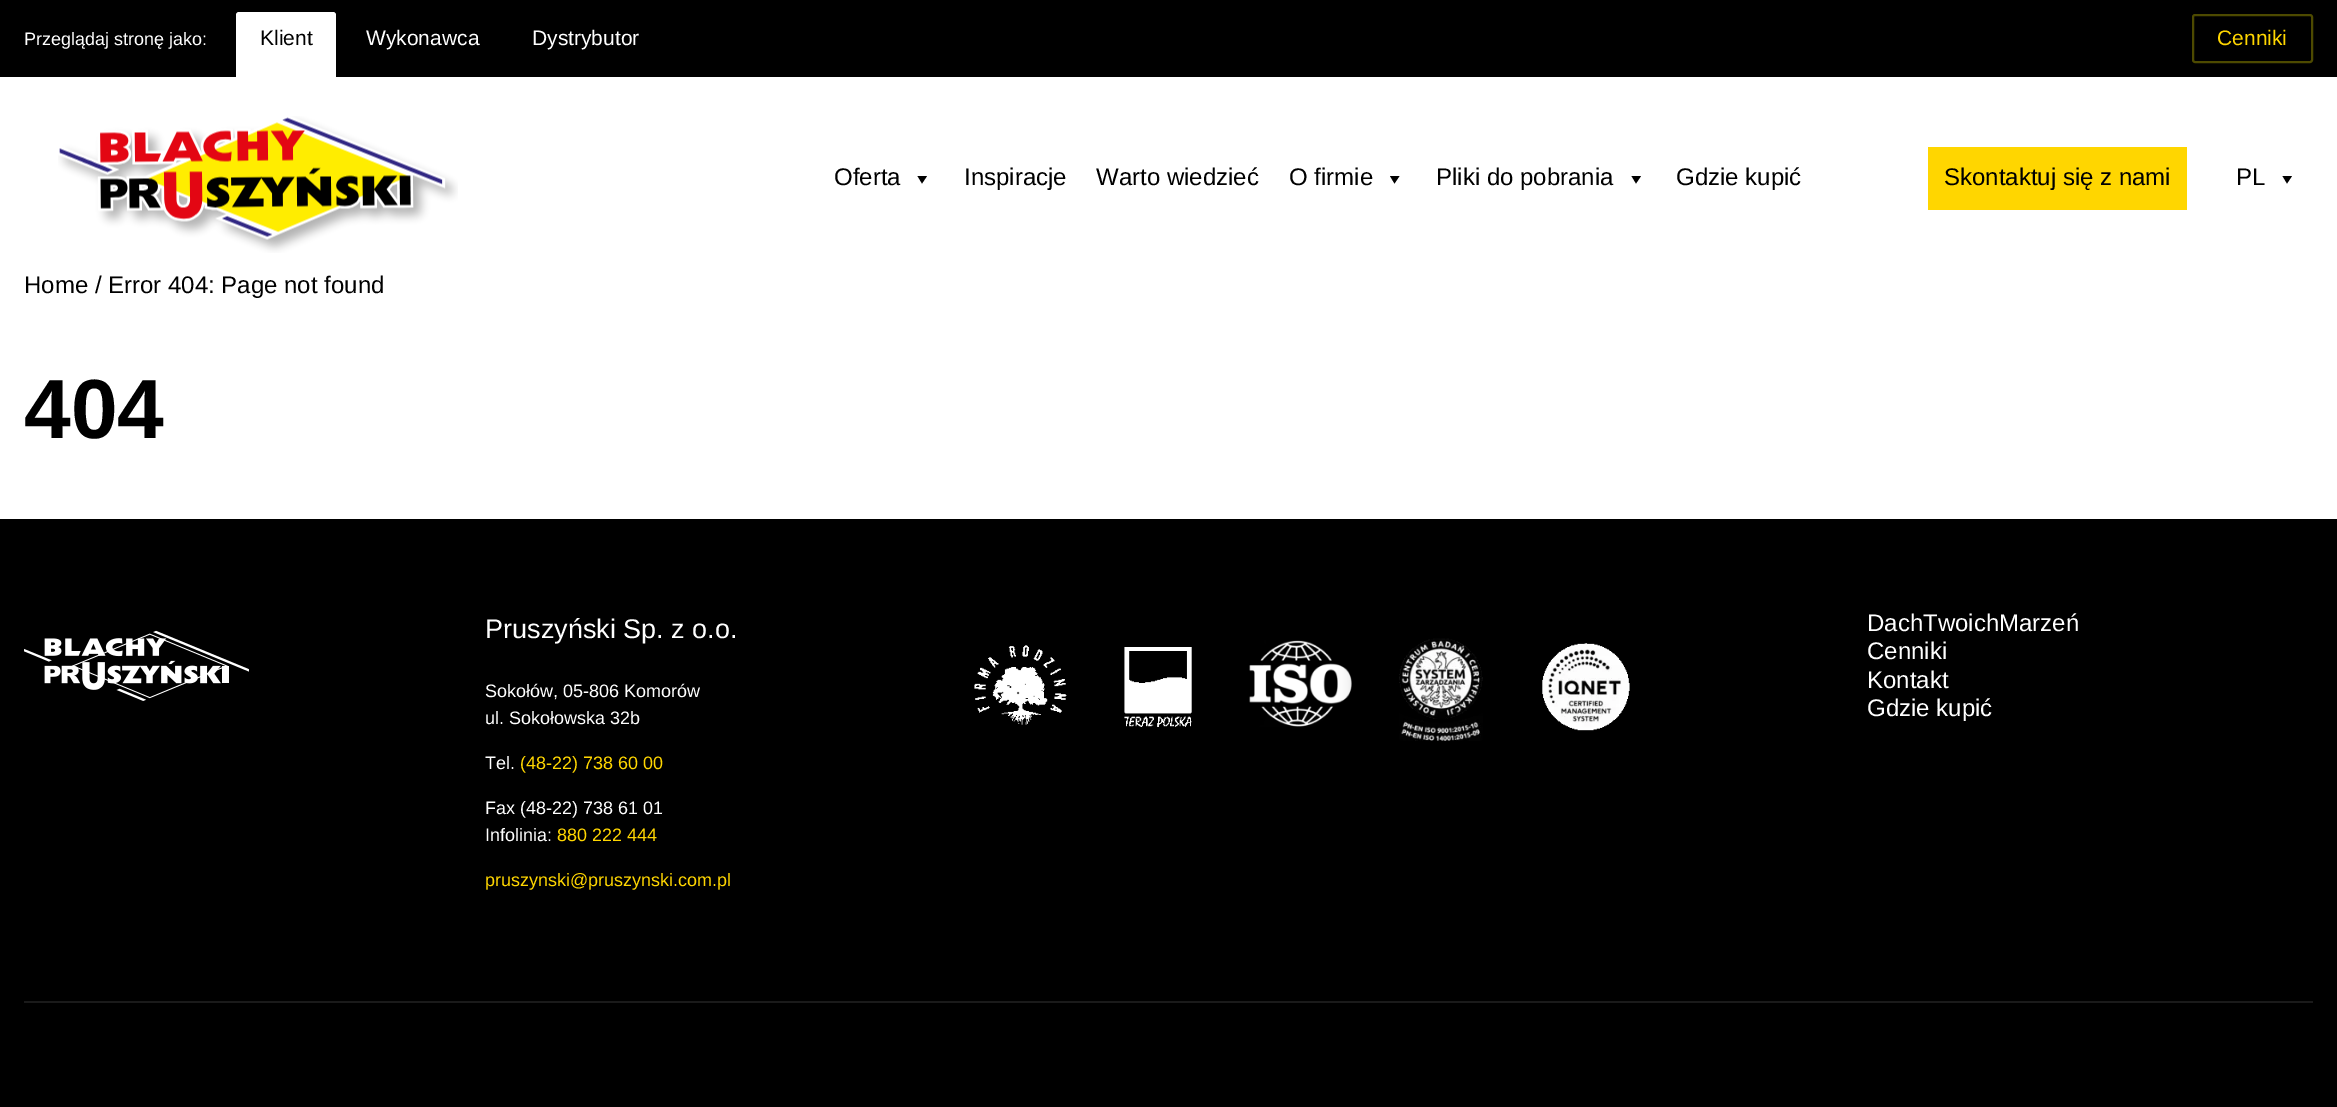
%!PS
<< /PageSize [2337 1107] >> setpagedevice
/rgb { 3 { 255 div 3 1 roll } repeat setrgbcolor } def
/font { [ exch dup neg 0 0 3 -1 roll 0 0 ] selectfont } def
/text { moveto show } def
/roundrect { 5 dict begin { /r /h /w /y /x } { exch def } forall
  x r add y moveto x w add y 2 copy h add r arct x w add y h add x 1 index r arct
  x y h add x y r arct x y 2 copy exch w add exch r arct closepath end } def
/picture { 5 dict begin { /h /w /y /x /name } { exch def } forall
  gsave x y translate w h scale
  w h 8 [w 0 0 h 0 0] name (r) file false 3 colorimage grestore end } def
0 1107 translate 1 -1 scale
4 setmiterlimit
255 255 255 rgb
0 0 2337 1107 rectfill
0 0 0 rgb
0 0 2337 77 rectfill
255 255 255 rgb
239 12 moveto 94 0 rlineto 1.5 0 3 1.5 3 3 rcurveto 0 62 rlineto -100 0 rlineto 0 -62 rlineto 0 -1.5 1.5 -3 3 -3 rcurveto closepath fill
77 74 0 rgb
2 setlinewidth
2193 15 119 47 2 roundrect stroke
(img_01.rgb) 58 116 400 137 picture
0 0 0 rgb
927 176 moveto -5 7.5 rlineto -4.5 -7.5 rlineto closepath fill
1399.5 176 moveto -5 7.5 rlineto -4.5 -7.5 rlineto closepath fill
1641 176 moveto -5 7.5 rlineto -4.5 -7.5 rlineto closepath fill
255 214 0 rgb
1928 147 259 63 rectfill
0 0 0 rgb
2292 176 moveto -5 7.5 rlineto -4.5 -7.5 rlineto closepath fill
0 519 2337 588 rectfill
(img_02.rgb) 24 630 225 71 picture
(img_03.rgb) 974 645 93 80 picture
(img_04.rgb) 1124 647 68 80 picture
(img_05.rgb) 1249 640 103 87 picture
(img_06.rgb) 1399 638 84 103 picture
(img_07.rgb) 1542 643 88 88 picture
26 26 26 rgb
24 1001 2289 2 rectfill
/LiberationSans-Regular 18 font
255 255 255 rgb
(Przeglądaj stronę jako:) 24 45 text
/LiberationSans-Regular 21 font
0 0 0 rgb
(Klient) 260 45 text
255 255 255 rgb
(Wykonawca) 366 45 text
(Dystrybutor) 532 45 text
255 214 0 rgb
(Cenniki) 2217 45 text
/LiberationSans-Regular 24 font
0 0 0 rgb
(Oferta) 834 185 text
(Inspiracje) 964 185 text
(Warto wiedzieć) 1096 185 text
(O firmie) 1289 185 text
(Pliki do pobrania) 1436 185 text
(Gdzie kupić) 1676 185 text
(Skontaktuj się z nami) 1944 185 text
(PL) 2236 185 text
(Home / Error 404: Page not found) 24 293 text
/LiberationSans-Bold 84 font
(404) 24 438 text
/LiberationSans-Regular 27 font
255 255 255 rgb
(Pruszyński Sp. z o.o.) 485 638 text
/LiberationSans-Regular 18 font
(Sokołów, 05-806 Komorów) 485 697 text
(ul. Sokołowska 32b) 485 724 text
(Tel.) 485 769 text
255 214 0 rgb
(\(48-22\) 738 60 00) 520 769 text
255 255 255 rgb
(Fax \(48-22\) 738 61 01) 485 814 text
(Infolinia:) 485 841 text
255 214 0 rgb
(880 222 444) 557 841 text
(pruszynski@pruszynski.com.pl) 485 886 text
/LiberationSans-Regular 24 font
255 255 255 rgb
(DachTwoichMarzeń) 1867 631 text
(Cenniki) 1867 659 text
(Kontakt) 1867 688 text
(Gdzie kupić) 1867 716 text
showpage
